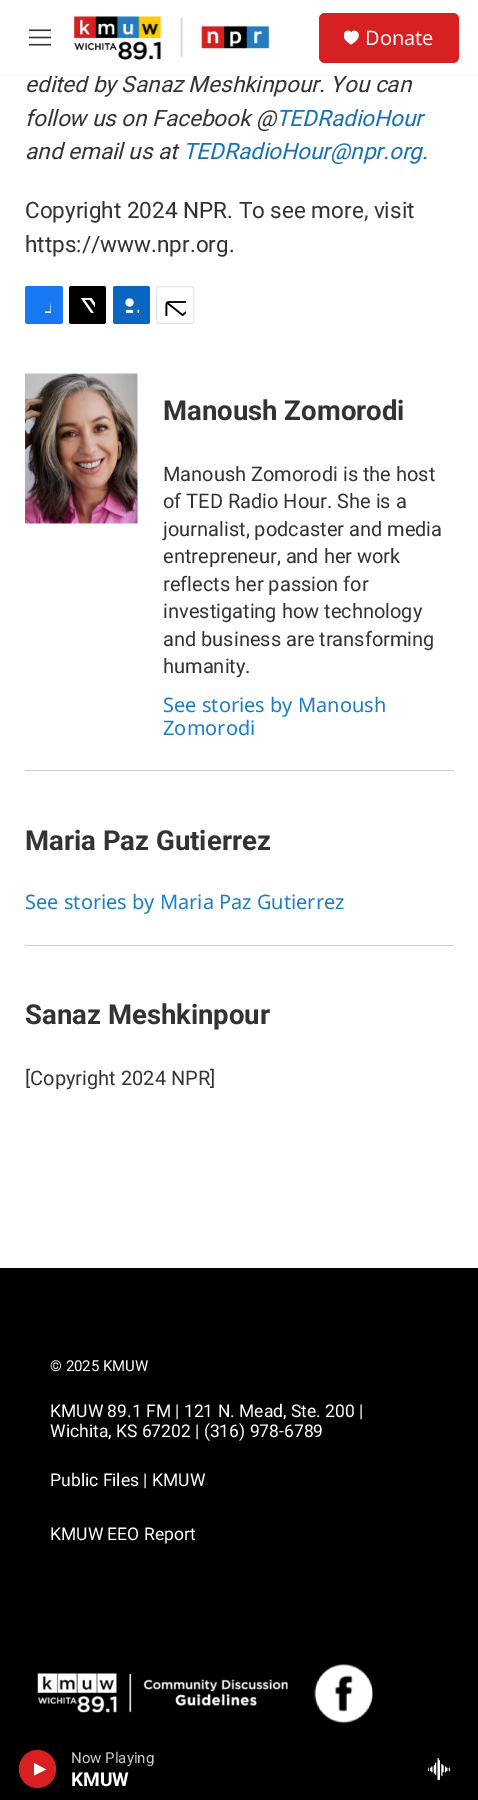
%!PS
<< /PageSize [478 1800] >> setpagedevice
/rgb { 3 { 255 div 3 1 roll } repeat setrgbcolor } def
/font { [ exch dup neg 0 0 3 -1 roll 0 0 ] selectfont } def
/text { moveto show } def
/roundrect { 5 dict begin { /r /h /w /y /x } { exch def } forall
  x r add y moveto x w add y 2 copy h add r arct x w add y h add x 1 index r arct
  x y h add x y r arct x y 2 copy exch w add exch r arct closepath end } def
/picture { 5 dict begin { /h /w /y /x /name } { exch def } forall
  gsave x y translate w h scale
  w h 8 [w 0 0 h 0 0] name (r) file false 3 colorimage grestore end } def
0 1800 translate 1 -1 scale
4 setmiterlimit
255 255 255 rgb
0 0 478 1800 rectfill
(img_01.rgb) 29 29 22 17 picture
(img_02.rgb) 73 15 197 45 picture
214 32 33 rgb
319 13 140 50 6 roundrect fill
gsave
344 30 15 15 rectclip
255 255 255 rgb
351 33 moveto -2 -6.5 -15.5 2 0 11.5 rcurveto 16 -9.5 2.5 -18 0 -11.5 rcurveto closepath fill
grestore
0 0 0 rgb
0 1268 478 532 rectfill
214 32 33 rgb
19 1750 37 38 18.5 roundrect fill
255 255 255 rgb
34 1763 moveto 12 6.5 rlineto -12 6 rlineto closepath fill
(img_03.rgb) 428 1758 22 22 picture
23 120 242 rgb
25 286 38 38 2.5 roundrect fill
(img_04.rgb) 45 303 6 10 picture
0 0 0 rgb
69 286 37 38 2.5 roundrect fill
(img_05.rgb) 80 298 15 15 picture
10 102 193 rgb
113 286 37 38 2.5 roundrect fill
(img_06.rgb) 125 298 14 15 picture
230 230 230 rgb
156.5 286.5 37 37 2 roundrect stroke
(img_07.rgb) 165 301 21 15 picture
204 204 204 rgb
25 770 429 1 rectfill
(img_08.rgb) 25 373 113 151 picture
25 945 429 1 rectfill
(img_09.rgb) 37 1673 251 40 picture
(img_10.rgb) 314 1664 59 59 picture
/NotoSans-Regular 20 font
255 255 255 rgb
(Donate) 365 45 text
/Roboto-Regular 15 font
204 204 204 rgb
(Now Playing) 71 1763 text
/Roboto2-Bold 19 font
255 255 255 rgb
(KMUW) 71 1786 text
/Roboto-Italic 22.5 font
51 51 51 rgb
(edited by Sanaz Meshkinpour. You can) 25 92 text
245 245 245 rgb
0 75 478 1 rectfill
51 51 51 rgb
(follow us on Facebook @) 25 126 text
23 114 176 rgb
(TEDRadioHour) 276 126 text
51 51 51 rgb
(and email us at) 25 159 text
23 114 176 rgb
(TEDRadioHour@npr.org.) 183 159 text
/Roboto-Regular 22.5 font
51 51 51 rgb
(Copyright 2024 NPR. To see more, visit) 25 218 text
(https://www.npr.org.) 25 252 text
/Roboto-Bold 27.5 font
(Manoush Zomorodi) 163 420 text
/Roboto-Regular 20 font
(Manoush Zomorodi is the host) 163 481 text
(of TED Radio Hour. She is a) 163 508 text
(journalist, podcaster and media) 163 536 text
(entrepreneur, and her work) 163 563 text
(reflects her passion for) 163 591 text
(investigating how technology) 163 618 text
(and business are transforming) 163 646 text
(humanity.) 163 673 text
/NotoSans-Regular 20 font
26 127 195 rgb
(See stories by Manoush) 163 712 text
(Zomorodi) 163 735 text
/Roboto-Bold 27.5 font
51 51 51 rgb
(Maria Paz Gutierrez) 25 850 text
/NotoSans-Regular 20 font
26 127 195 rgb
(See stories by Maria Paz Gutierrez) 25 909 text
/Roboto-Bold 27.5 font
51 51 51 rgb
(Sanaz Meshkinpour) 25 1024 text
/Roboto-Regular 20 font
([Copyright 2024 NPR]) 25 1085 text
/Roboto-Regular 15 font
255 255 255 rgb
(© 2025 KMUW) 50 1371 text
/Roboto-Regular 17.5 font
(KMUW 89.1 FM | 121 N. Mead, Ste. 200 |) 50 1417 text
(Wichita, KS 67202 | \(316\) 978-6789) 50 1437 text
(Public Files | KMUW) 50 1486 text
(KMUW EEO Report) 50 1540 text
showpage
